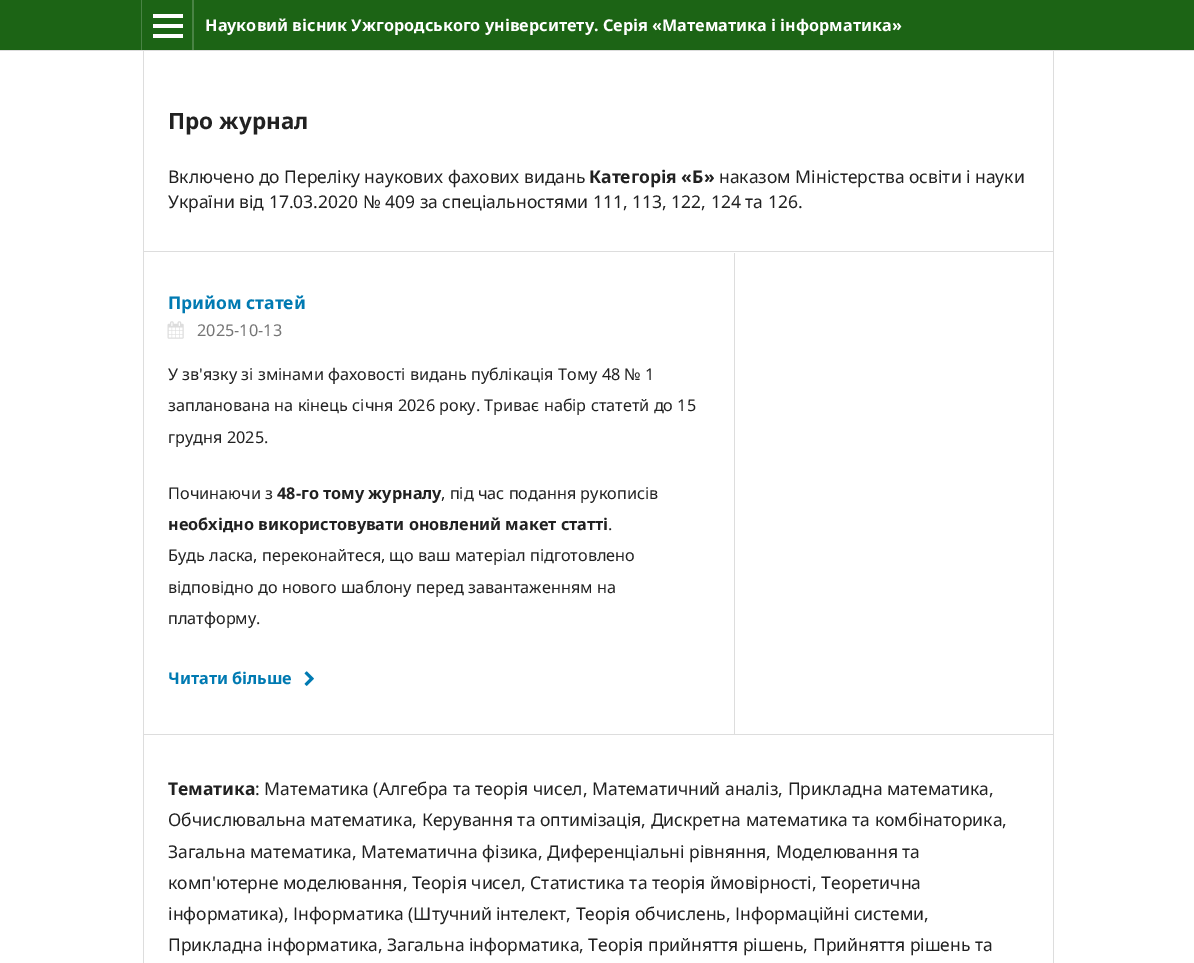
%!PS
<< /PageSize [1194 963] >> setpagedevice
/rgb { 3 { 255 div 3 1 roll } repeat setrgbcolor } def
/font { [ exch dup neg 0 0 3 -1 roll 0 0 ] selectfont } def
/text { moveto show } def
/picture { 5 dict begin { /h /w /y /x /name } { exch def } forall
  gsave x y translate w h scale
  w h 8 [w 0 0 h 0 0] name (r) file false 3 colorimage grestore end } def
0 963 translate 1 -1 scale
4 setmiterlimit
255 255 255 rgb
0 0 1194 963 rectfill
28 100 21 rgb
0 0 1194 50 rectfill
221 221 221 rgb
0 50 1194 1 rectfill
73 131 68 rgb
141 0 1 50 rectfill
192 0 2 50 rectfill
255 255 255 rgb
153 34 30 4 rectfill
153 14 30 4 rectfill
153 24 30 4 rectfill
221 221 221 rgb
143 251 910 1 rectfill
143 734 910 1 rectfill
143 51 1 912 rectfill
734 253 1 481 rectfill
(img_01.rgb) 167 321 17 18 picture
(img_02.rgb) 304 671 10 15 picture
1053 51 1 912 rectfill
/NotoSans-Bold 16.25 font
255 255 255 rgb
(Науковий вісник Ужгородського університету. Серія «Математика і інформатика») 205 31 text
/NotoSans-Bold 22.5 font
33 33 33 rgb
(Про журнал) 168 129 text
/NotoSans-Regular 17.5 font
(Включено до Переліку наукових фахових видань) 168 183 text
/NotoSans-Bold 17.5 font
(Категорія «Б») 589 183 text
/NotoSans-Regular 17.5 font
(наказом Міністерства освіти і науки) 719 183 text
(України від 17.03.2020 № 409 за спеціальностями 111, 113, 122, 124 та 126.) 168 208 text
/NotoSans-Bold 17.5 font
0 122 178 rgb
(Прийом статей) 168 309 text
/NotoSans-Regular 16.25 font
117 117 117 rgb
(2025-10-13) 197 336 text
33 33 33 rgb
(У зв'язку зі змінами фаховості видань публікація Тому 48 № 1) 168 380 text
(запланована на кінець січня 2026 року. Триває набір статетй до 15) 168 411 text
(грудня 2025.) 168 443 text
(Починаючи з) 168 499 text
/NotoSans-Bold 16.25 font
(48-го тому журналу) 277 499 text
/NotoSans-Regular 16.25 font
(, під час подання рукописів) 441 499 text
/NotoSans-Bold 16.25 font
(необхідно використовувати оновлений макет статті) 168 530 text
/NotoSans-Regular 16.25 font
(.) 608 530 text
(Будь ласка, переконайтеся, що ваш матеріал підготовлено) 168 561 text
(відповідно до нового шаблону перед завантаженням на) 168 593 text
(платформу.) 168 624 text
/NotoSans-Bold 16.25 font
0 122 178 rgb
(Читати більше) 168 684 text
/NotoSans-Bold 17.5 font
33 33 33 rgb
(Тематика) 168 795 text
/NotoSans-Regular 17.5 font
(: Математика \(Алгебра та теорія чисел, Математичний аналіз, Прикладна математика,) 255 795 text
(Обчислювальна математика, Керування та оптимізація, Дискретна математика та комбінаторика,) 168 826 text
(Загальна математика, Математична фізика, Диференціальні рівняння, Моделювання та) 168 858 text
(комп'ютерне моделювання, Теорія чисел, Статистика та теорія ймовірності, Теоретична) 168 889 text
(інформатика\), Інформатика \(Штучний інтелект, Теорія обчислень, Інформаційні системи,) 168 920 text
(Прикладна інформатика, Загальна інформатика, Теорія прийняття рішень, Прийняття рішень та) 168 951 text
showpage
